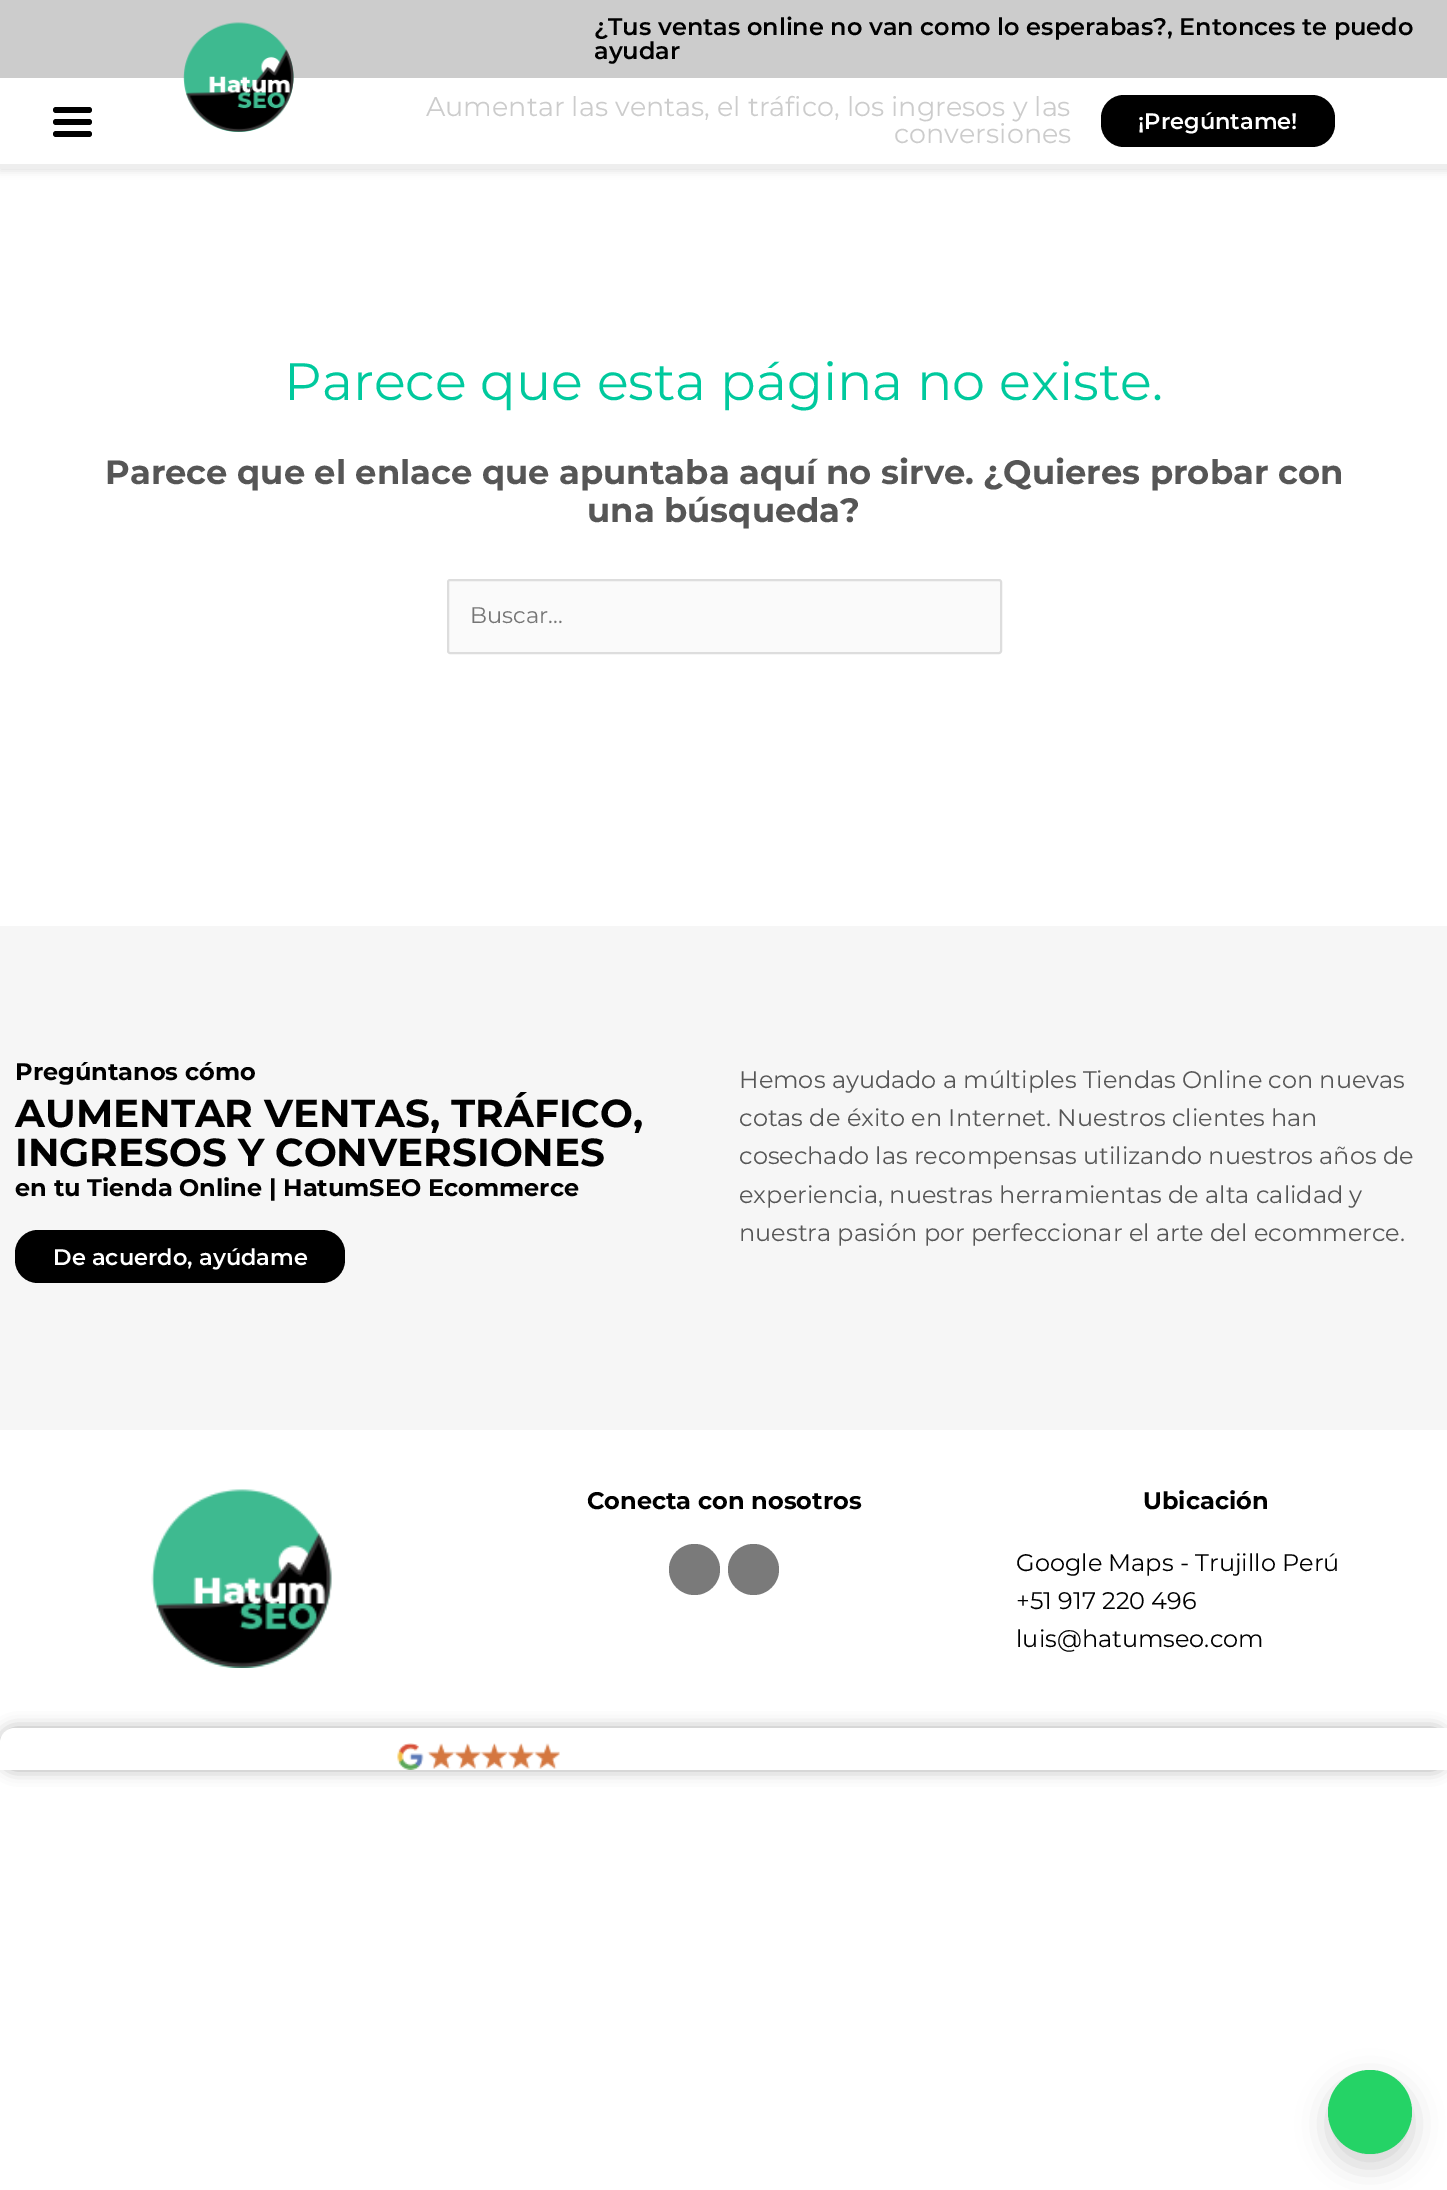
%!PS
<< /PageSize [1447 2190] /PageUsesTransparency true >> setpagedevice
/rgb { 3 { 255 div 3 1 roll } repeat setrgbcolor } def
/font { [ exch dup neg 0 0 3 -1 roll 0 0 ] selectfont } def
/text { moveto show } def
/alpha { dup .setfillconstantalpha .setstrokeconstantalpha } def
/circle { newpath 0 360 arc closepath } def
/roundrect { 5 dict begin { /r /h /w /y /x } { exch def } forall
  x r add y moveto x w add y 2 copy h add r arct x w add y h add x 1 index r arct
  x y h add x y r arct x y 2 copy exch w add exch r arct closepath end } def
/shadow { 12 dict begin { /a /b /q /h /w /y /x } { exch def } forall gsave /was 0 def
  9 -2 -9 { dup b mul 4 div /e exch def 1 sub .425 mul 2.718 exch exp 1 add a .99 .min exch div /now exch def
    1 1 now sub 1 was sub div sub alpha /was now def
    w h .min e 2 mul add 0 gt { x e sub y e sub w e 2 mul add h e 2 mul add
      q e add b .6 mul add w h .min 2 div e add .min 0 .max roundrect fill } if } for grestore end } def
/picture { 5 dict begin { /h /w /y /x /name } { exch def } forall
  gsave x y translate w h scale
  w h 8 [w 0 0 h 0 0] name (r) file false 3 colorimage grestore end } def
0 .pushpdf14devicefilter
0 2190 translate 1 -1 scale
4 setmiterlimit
255 255 255 rgb
0 0 1447 2190 rectfill
204 204 204 rgb
0 0 1447 78 rectfill
gsave
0 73 moveto 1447 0 rlineto 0 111 rlineto -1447 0 rlineto closepath 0 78 moveto 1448 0 rlineto 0 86 rlineto -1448 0 rlineto closepath eoclip newpath
194 194 194 rgb
0 86 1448 85 0 4 0.5 shadow
grestore
0 0 0 rgb
53 119 39 6 3 roundrect fill
53 107 39 6 3 roundrect fill
53 131 39 6 3 roundrect fill
(img_01.rgb) 183 22 111 110 picture
1101 95 234 52 23 roundrect fill
238 238 238 rgb
0 164 1447 5 rectfill
250 250 250 rgb
448 580 553 73 2 roundrect gsave fill grestore
221 221 221 rgb
2 setlinewidth
stroke
246 246 246 rgb
0 926 1447 504 rectfill
0 0 0 rgb
15 1230 330 53 23 roundrect fill
(img_02.rgb) 151 1489 181 179 picture
122 122 122 rgb
694.5 1569.5 25.5 circle fill
753.5 1569.5 25.5 circle fill
0 0 0 rgb
0 1728 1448 42 15 7.5 0.32 shadow
255 255 255 rgb
15 1728 moveto 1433 0 rlineto 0 42 rlineto -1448 0 rlineto 0 -27 rlineto 0 -8.5 6.5 -15 15 -15 rcurveto closepath fill
(img_03.rgb) 397 1743 163 27 picture
0 0 0 rgb
1328 2082 84 84 42 15 0.18 shadow
37 211 102 rgb
1370 2112 42 circle fill
/Montserrat-SemiBold 24 font
0 0 0 rgb
(¿Tus ventas online no van como lo esperabas?, Entonces te puedo) 594 35 text
(ayudar) 594 59 text
/Montserrat-Regular 27 font
204 204 204 rgb
(Aumentar las ventas, el tráfico, los ingresos y las) 426 116 text
(conversiones) 894 143 text
/Montserrat-SemiBold 22.5 font
255 255 255 rgb
(¡Pregúntame!) 1138 129 text
/Montserrat-Regular 52.5 font
0 201 157 rgb
(Parece que esta página no existe.) 284 400 text
/Montserrat-Bold 33.75 font
86 86 86 rgb
(Parece que el enlace que apuntaba aquí no sirve. ¿Quieres probar con) 105 484 text
(una búsqueda?) 587 522 text
/Montserrat-Regular 22.5 font
117 117 117 rgb
(Buscar...) 470 623 text
/Montserrat-Bold 24 font
0 0 0 rgb
(Pregúntanos cómo) 15 1080 text
/Montserrat-Bold 39 font
(AUMENTAR VENTAS, TRÁFICO,) 15 1127 text
(INGRESOS Y CONVERSIONES) 15 1166 text
/Montserrat-Bold 24 font
(en tu Tienda Online | HatumSEO Ecommerce) 15 1196 text
/Montserrat-SemiBold 22.5 font
255 255 255 rgb
(De acuerdo, ayúdame) 53 1265 text
/Montserrat-Regular 24 font
86 86 86 rgb
(Hemos ayudado a múltiples Tiendas Online con nuevas) 739 1088 text
(cotas de éxito en Internet. Nuestros clientes han) 739 1126 text
(cosechado las recompensas utilizando nuestros años de) 739 1164 text
(experiencia, nuestras herramientas de alta calidad y) 739 1203 text
(nuestra pasión por perfeccionar el arte del ecommerce.) 739 1241 text
/Montserrat-Bold 24 font
0 0 0 rgb
(Conecta con nosotros) 587 1509 text
(Ubicación) 1143 1509 text
/Montserrat-Regular 24 font
(Google Maps - Trujillo Perú) 1016 1571 text
(+51 917 220 496) 1016 1609 text
(luis@hatumseo.com) 1016 1647 text
.poppdf14devicefilter showpage
